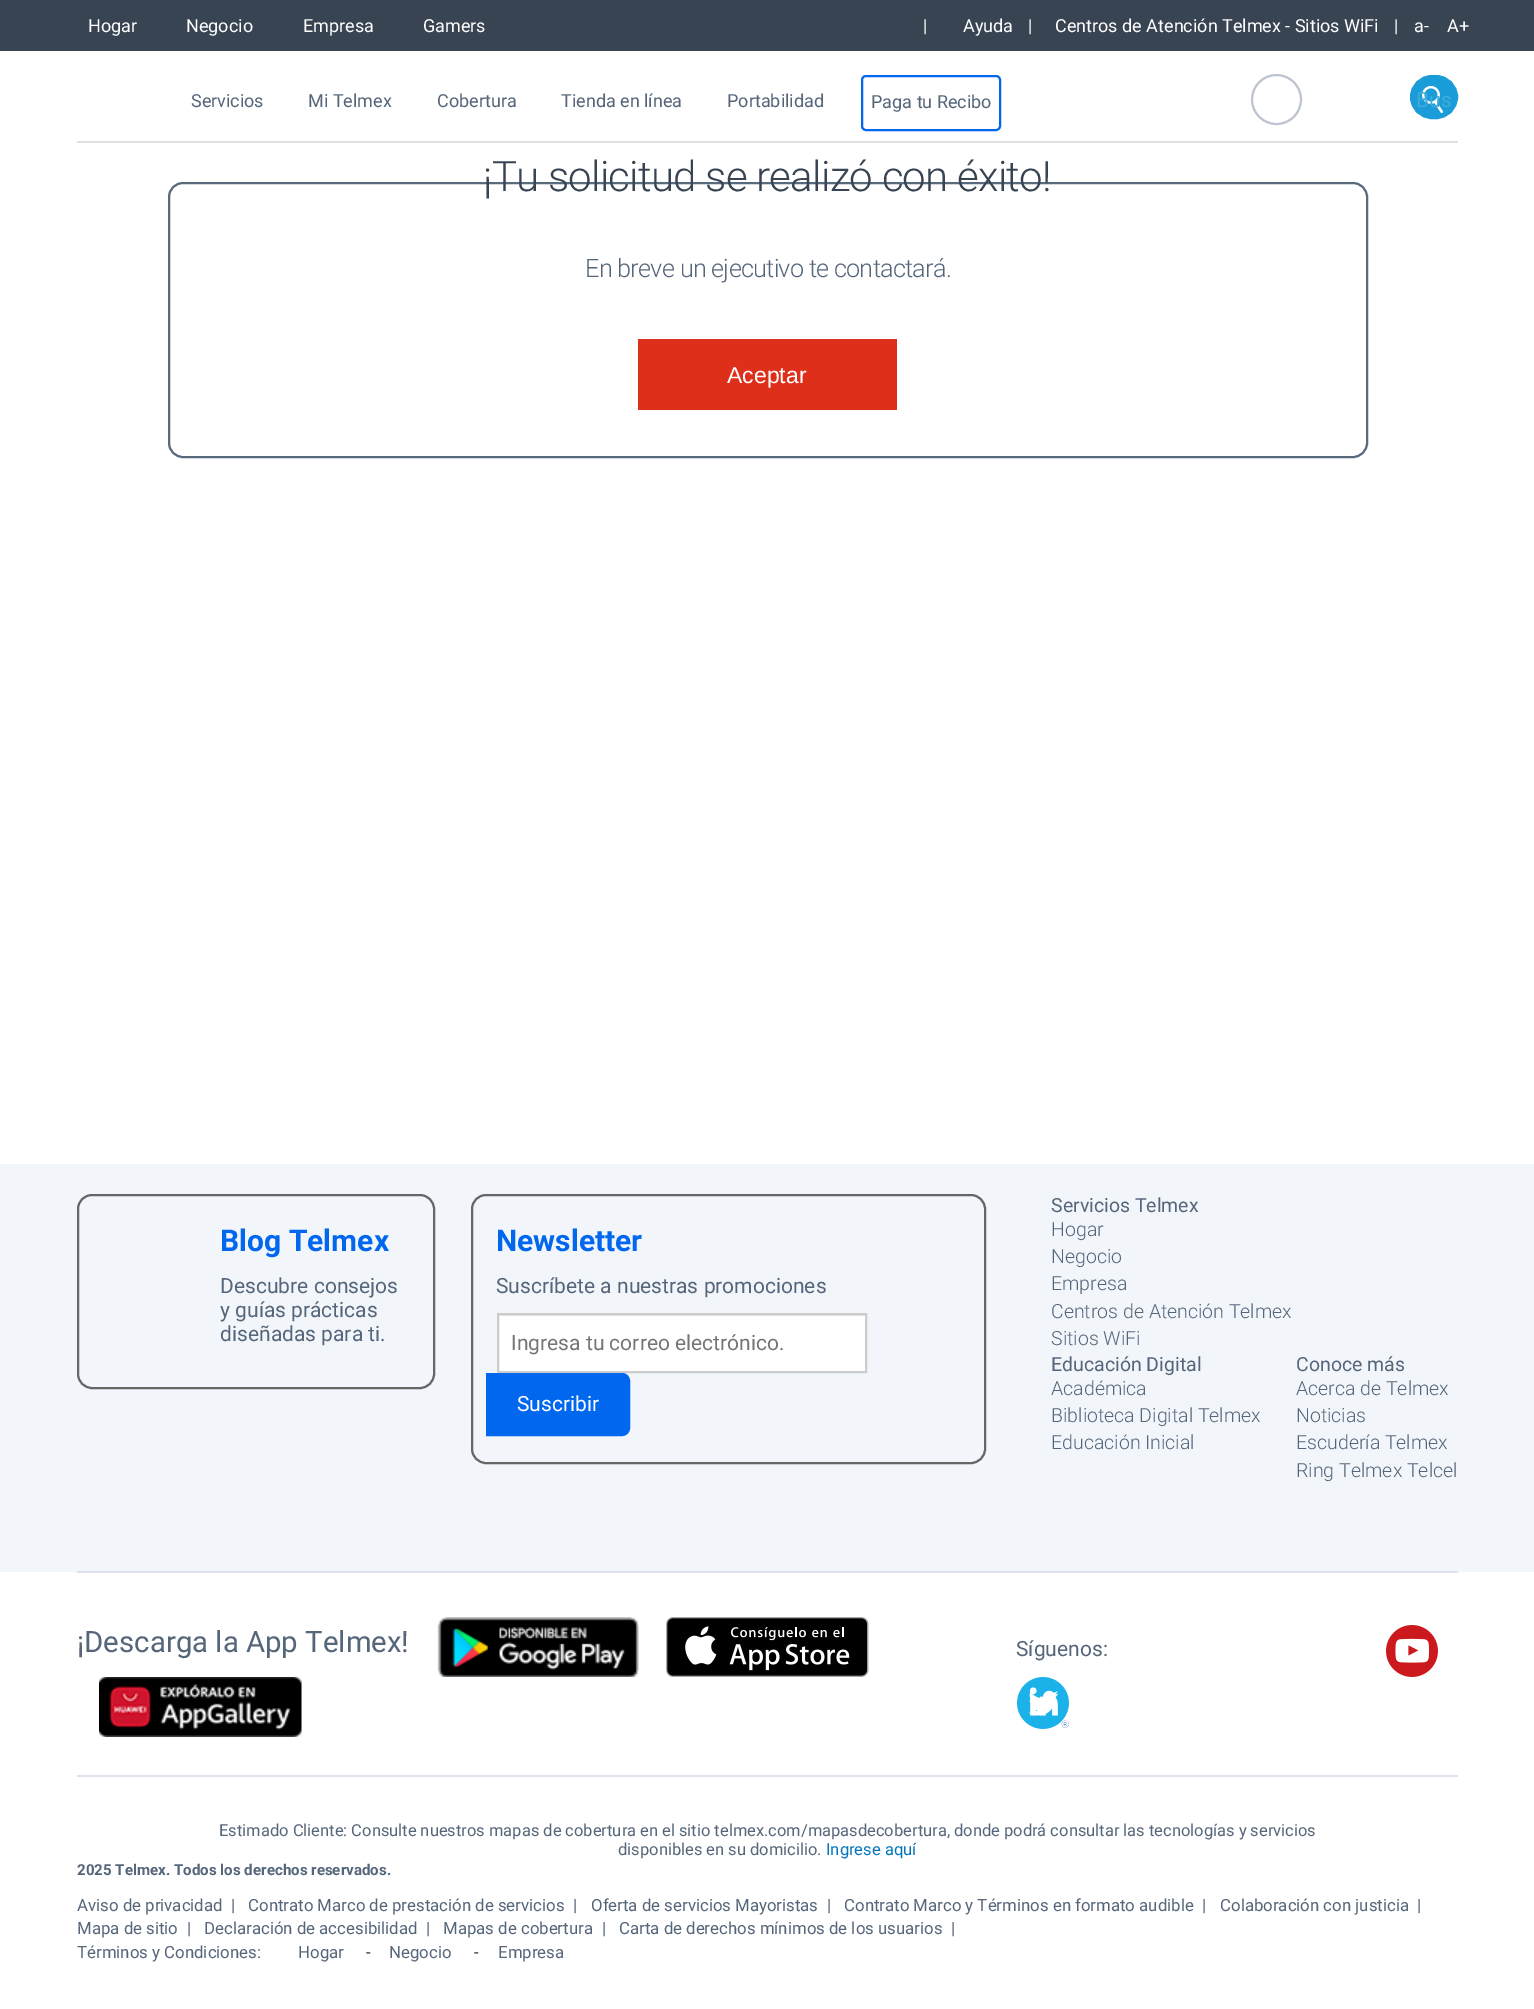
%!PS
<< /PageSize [1534 2009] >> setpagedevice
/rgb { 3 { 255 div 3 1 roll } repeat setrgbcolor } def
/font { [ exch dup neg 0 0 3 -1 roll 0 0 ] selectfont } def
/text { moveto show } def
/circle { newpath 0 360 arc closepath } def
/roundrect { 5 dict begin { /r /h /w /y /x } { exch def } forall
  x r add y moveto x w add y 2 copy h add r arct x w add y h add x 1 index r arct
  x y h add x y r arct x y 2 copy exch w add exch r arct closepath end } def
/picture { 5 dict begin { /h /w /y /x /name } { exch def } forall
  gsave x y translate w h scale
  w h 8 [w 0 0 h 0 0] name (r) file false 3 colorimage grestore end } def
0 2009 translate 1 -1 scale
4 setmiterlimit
255 255 255 rgb
0 0 1534 2009 rectfill
56 68 82 rgb
0 0 1534 51 rectfill
224 224 224 rgb
77 141 1381 2 rectfill
0 103 238 rgb
2 setlinewidth
862 76 138 54 4 roundrect stroke
189 196 208 rgb
1276.5 99.5 24.5 circle stroke
25 156 215 rgb
1411 76 46 42 21 roundrect stroke
gsave
1412 77 45 40 20 roundrect clip newpath
1407 75 51 50 25 roundrect fill
grestore
(img_01.rgb) 1421 86 23 28 picture
88 107 126 rgb
169 183 1198 274 14 roundrect stroke
222 47 27 rgb
638 339 259 71 rectfill
242 245 250 rgb
0 1164 1534 408 rectfill
221 227 236 rgb
77 1571 1381 2 rectfill
102 102 102 rgb
78 1195 356 193 14 roundrect stroke
472 1195 513 268 14 roundrect stroke
255 255 255 rgb
499 1316 366 55 rectfill
235 235 235 rgb
498 1315 368 1 rectfill
204 204 204 rgb
498 1314 368 58 rectstroke
0 103 238 rgb
487 1374 moveto 135 0 rlineto 4 0 7 3 7 7 rcurveto 0 47 rlineto 0 4 -3 7 -7 7 rcurveto -135 0 rlineto closepath gsave fill grestore
stroke
221 227 236 rgb
77 1775 1381 2 rectfill
(img_02.rgb) 437 1617 202 60 picture
(img_03.rgb) 666 1617 203 60 picture
(img_04.rgb) 99 1677 203 60 picture
(img_05.rgb) 1386 1625 52 52 picture
(img_06.rgb) 1017 1677 52 52 picture
/Roboto-Regular 18 font
255 255 255 rgb
(Hogar) 88 32 text
(Negocio) 186 32 text
(Empresa) 303 32 text
(Gamers) 423 32 text
(|) 923 32 text
(Ayuda) 963 32 text
(|) 1028 32 text
(Centros de Atención Telmex - Sitios WiFi) 1055 32 text
(|) 1394 32 text
(a-) 1414 32 text
(A+) 1447 32 text
85 102 122 rgb
(Servicios) 191 107 text
(Mi Telmex) 308 107 text
(Cobertura) 437 107 text
(Tienda en línea) 561 107 text
(Portabilidad) 727 107 text
(Paga tu Recibo) 871 108 text
/Roboto-Regular 21 font
61 172 221 rgb
(Bus) 1416 107 text
/Roboto-Light 42 font
56 68 82 rgb
483 191 moveto -0.75 0 (¡Tu solicitud se realizó con éxito!) ashow
/Roboto-Light 25.25 font
85 102 122 rgb
585 277 moveto -0.75 0 (En breve un ejecutivo te contactará.) ashow
/LiberationSans-Regular 23 font
255 255 255 rgb
(Aceptar) 727 383 text
/Roboto-Bold 30 font
0 103 238 rgb
(Blog Telmex) 220 1251 text
/Roboto-Regular 21 font
85 102 122 rgb
(Descubre consejos) 220 1293 text
(y guías prácticas) 220 1317 text
(diseñadas para ti.) 220 1341 text
/Roboto-Bold 30 font
0 103 238 rgb
(Newsletter) 496 1251 text
/Roboto-Regular 21 font
85 102 122 rgb
(Suscríbete a nuestras promociones) 496 1293 text
117 117 117 rgb
(Ingresa tu correo electrónico.) 511 1350 text
255 255 255 rgb
(Suscribir) 517 1411 text
/Roboto-Regular 19.5 font
85 102 122 rgb
(Servicios Telmex) 1051 1212 text
/Roboto-Light 19.5 font
(Hogar) 1051 1236 text
(Negocio) 1051 1263 text
(Empresa) 1051 1290 text
(Centros de Atención Telmex) 1051 1318 text
(Sitios WiFi) 1051 1345 text
/Roboto-Regular 19.5 font
(Educación Digital) 1051 1371 text
/Roboto-Light 19.5 font
(Académica) 1051 1395 text
(Biblioteca Digital Telmex) 1051 1422 text
(Educación Inicial) 1051 1449 text
/Roboto-Regular 19.5 font
(Conoce más) 1296 1371 text
/Roboto-Light 19.5 font
(Acerca de Telmex) 1296 1395 text
(Noticias) 1296 1422 text
(Escudería Telmex) 1296 1449 text
(Ring Telmex Telcel) 1296 1477 text
/Roboto-Regular 29.4 font
(¡Descarga la App Telmex!) 77 1652 text
/Roboto-Regular 21 font
(Síguenos:) 1016 1656 text
/Roboto-Regular 16.5 font
(Estimado Cliente: Consulte nuestros mapas de cobertura en el sitio telmex.com/mapasdecobertura, donde podrá consultar las tecnologías y servicios) 219 1836 text
(disponibles en su domicilio.) 618 1855 text
2 118 186 rgb
(Ingrese aquí) 826 1855 text
/Roboto-Bold 15.1 font
85 102 122 rgb
(2025 Telmex. Todos los derechos reservados.) 77 1875 text
/Roboto-Regular 16.8 font
(Aviso de privacidad) 77 1911 text
(|) 231 1911 text
(Contrato Marco de prestación de servicios) 248 1911 text
(|) 573 1911 text
(Oferta de servicios Mayoristas) 591 1911 text
(|) 827 1911 text
(Contrato Marco y Términos en formato audible) 844 1911 text
(|) 1202 1911 text
(Colaboración con justicia) 1220 1911 text
(|) 1417 1911 text
(Mapa de sitio) 77 1934 text
(|) 187 1934 text
(Declaración de accesibilidad) 204 1934 text
(|) 426 1934 text
(Mapas de cobertura) 443 1934 text
(|) 602 1934 text
(Carta de derechos mínimos de los usuarios) 619 1934 text
(|) 951 1934 text
(Términos y Condiciones:) 77 1958 text
(Hogar) 298 1958 text
48 49 63 rgb
(-) 366 1958 text
85 102 122 rgb
(Negocio) 389 1958 text
48 49 63 rgb
(-) 474 1958 text
85 102 122 rgb
(Empresa) 498 1958 text
showpage
